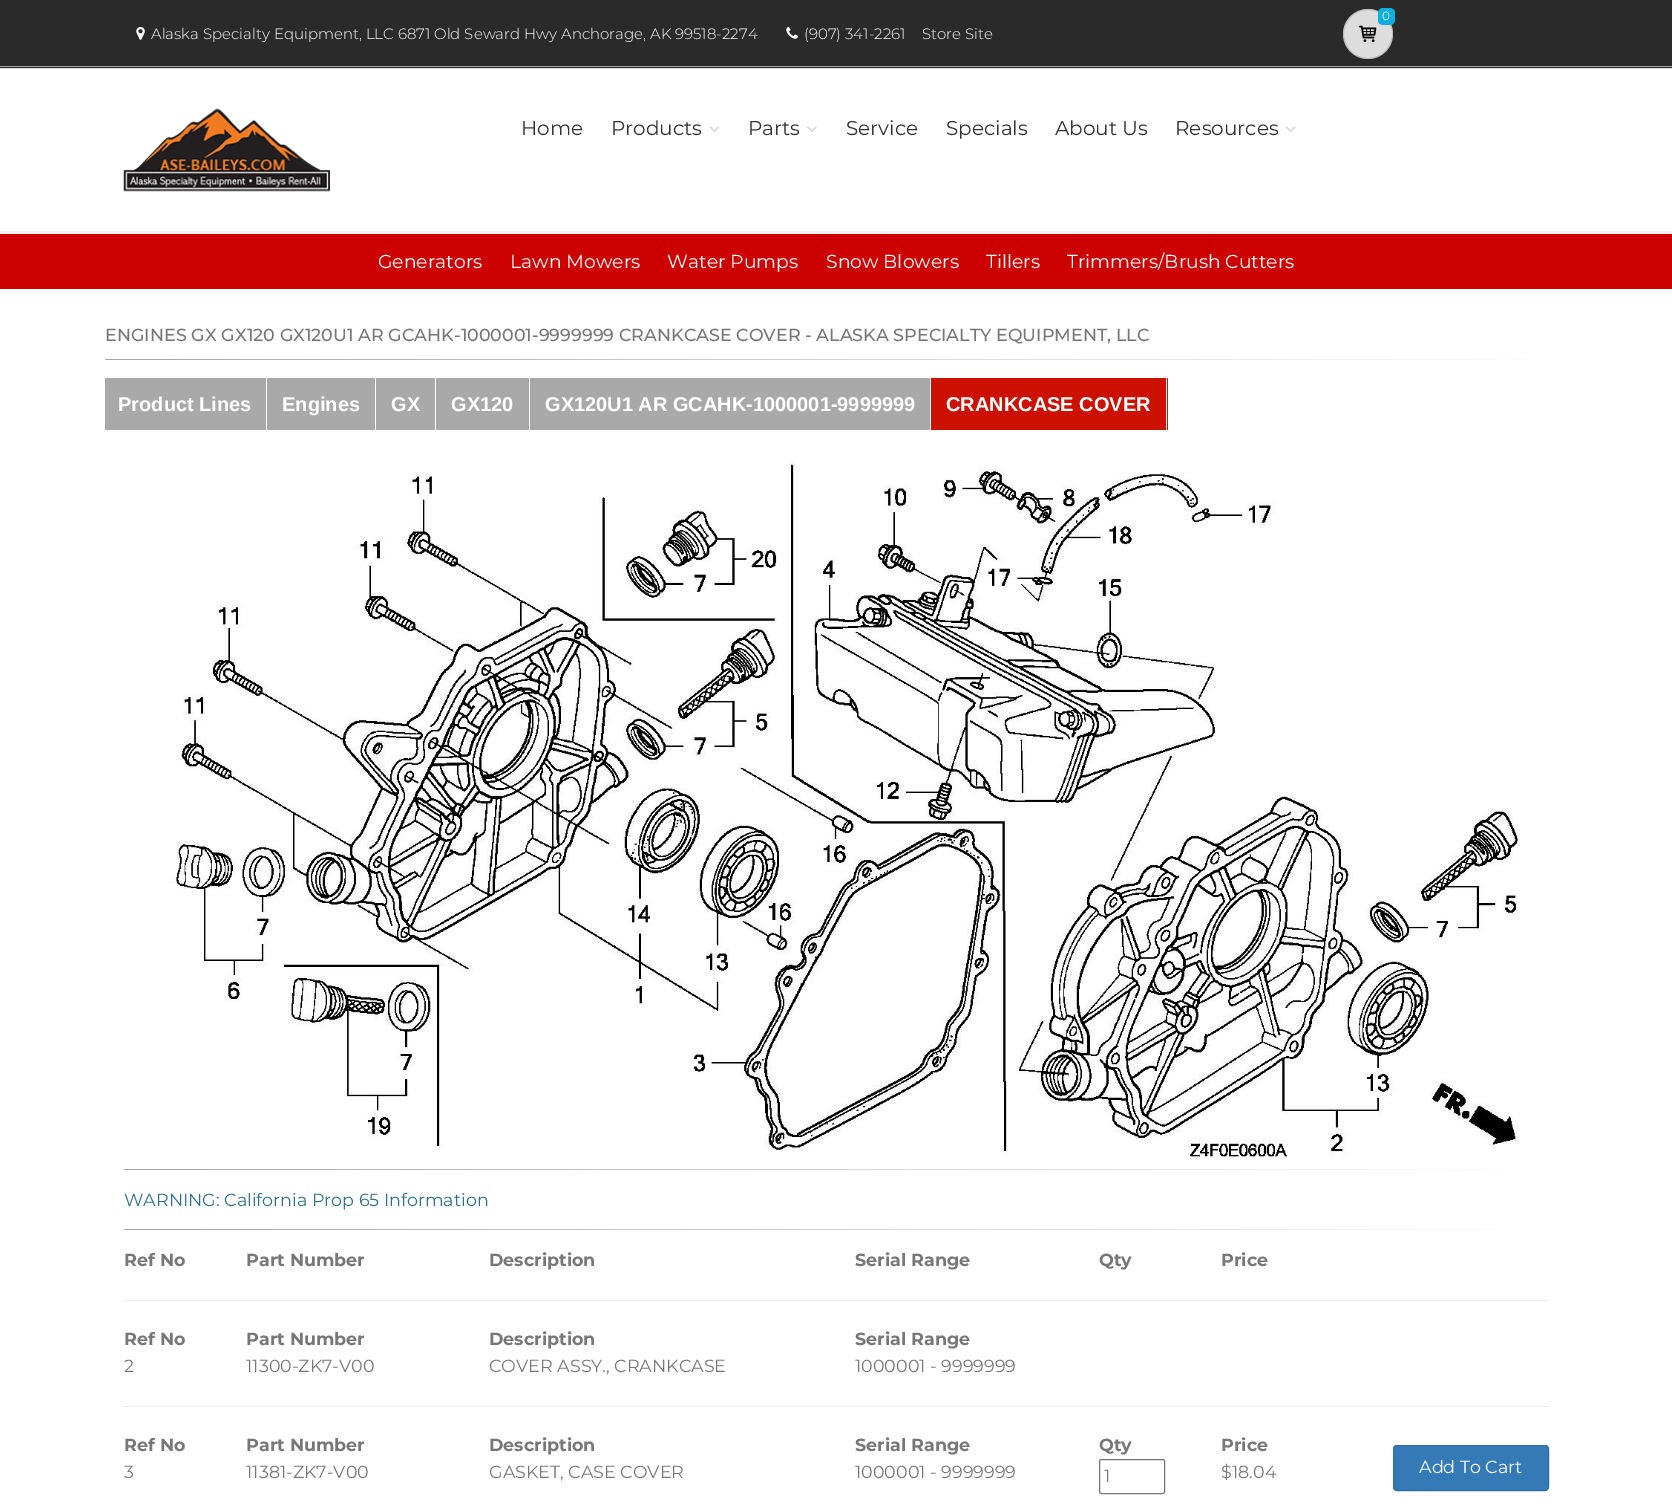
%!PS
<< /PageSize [1672 1506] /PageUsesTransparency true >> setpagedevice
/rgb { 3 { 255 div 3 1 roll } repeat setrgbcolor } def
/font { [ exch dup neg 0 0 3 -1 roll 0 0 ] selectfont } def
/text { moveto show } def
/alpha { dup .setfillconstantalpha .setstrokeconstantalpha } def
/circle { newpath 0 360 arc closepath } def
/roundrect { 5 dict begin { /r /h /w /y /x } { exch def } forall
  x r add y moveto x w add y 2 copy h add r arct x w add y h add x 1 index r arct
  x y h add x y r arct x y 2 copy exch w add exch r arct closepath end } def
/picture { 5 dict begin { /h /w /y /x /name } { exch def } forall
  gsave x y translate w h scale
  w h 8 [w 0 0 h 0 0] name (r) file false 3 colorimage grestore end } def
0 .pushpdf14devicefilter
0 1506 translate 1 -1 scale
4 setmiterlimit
255 255 255 rgb
0 0 1672 1506 rectfill
42 42 42 rgb
0 0 1672 68 rectfill
161 161 161 rgb
0 66 1672 1 rectfill
221 221 221 rgb
1368 34 25 circle fill
0.15 alpha
0 0 0 rgb
1368 34 24.5 circle stroke
1 alpha
9 175 223 rgb
1378 8 17 17 5 roundrect fill
(img_01.rgb) 1358 25 19 18 picture
(img_02.rgb) 136 27 9 13 picture
(img_03.rgb) 786 27 12 12 picture
221 221 221 rgb
0 68 1672 1 rectfill
241 241 241 rgb
0 231 1672 3 rectfill
(img_04.rgb) 123 108 207 84 picture
(img_05.rgb) 709 126 11 6 picture
(img_06.rgb) 807 126 10 6 picture
(img_07.rgb) 1285 126 11 6 picture
204 0 0 rgb
0 234 1672 55 rectfill
gsave 105 359 moveto 1421 0 rlineto 0 1 rlineto -1421 0 rlineto closepath clip newpath
<< /ShadingType 2 /ColorSpace /DeviceRGB /Coords [105 359 1568 359] /Extend [true true] /Function << /FunctionType 2 /Domain [0 1] /C0 [0.655 0.655 0.655] /C1 [1 1 1] /N 1 >> >> shfill grestore
169 169 169 rgb
105 378 270 52 rectfill
255 255 255 rgb
266 378 1 52 rectfill
169 169 169 rgb
376 378 59 52 rectfill
436 378 93 52 rectfill
530 378 400 52 rectfill
204 16 1 rgb
931 378 237 52 rectfill
255 255 255 rgb
1166 378 1 52 rectfill
(img_08.rgb) 171 461 1348 696 picture
gsave 124 1169 moveto 1385 0 rlineto 0 1 rlineto -1385 0 rlineto closepath clip newpath
<< /ShadingType 2 /ColorSpace /DeviceRGB /Coords [124 1169 1549 1169] /Extend [true true] /Function << /FunctionType 2 /Domain [0 1] /C0 [0.655 0.655 0.655] /C1 [1 1 1] /N 1 >> >> shfill grestore
gsave 124 1229 moveto 1385 0 rlineto 0 1 rlineto -1385 0 rlineto closepath clip newpath
<< /ShadingType 2 /ColorSpace /DeviceRGB /Coords [124 1229 1549 1229] /Extend [true true] /Function << /FunctionType 2 /Domain [0 1] /C0 [0.655 0.655 0.655] /C1 [1 1 1] /N 1 >> >> shfill grestore
238 238 238 rgb
124 1300 1425 1 rectfill
124 1406 1425 1 rectfill
118 118 118 rgb
1099.5 1459.5 65 34 2 roundrect stroke
51 122 183 rgb
1393.5 1445.5 155 45 3.5 roundrect gsave fill grestore
46 109 164 rgb
stroke
/Montserrat-Regular 12 font
255 255 255 rgb
(0) 1382 20 text
/Montserrat-Light 15 font
(Alaska Specialty Equipment, LLC 6871 Old Seward Hwy Anchorage, AK 99518-2274) 151 39 text
(\(907\) 341-2261) 804 39 text
(Store Site) 922 39 text
/Montserrat-Regular 20 font
51 51 51 rgb
(Home) 521 135 text
(Products) 611 135 text
(Parts) 748 135 text
(Service) 846 135 text
(Specials) 946 135 text
(About Us) 1055 135 text
(Resources) 1175 135 text
/Montserrat-Regular 18.75 font
255 255 255 rgb
(Generators) 378 268 text
(Lawn Mowers) 510 268 text
(Water Pumps) 667 268 text
(Snow Blowers) 826 268 text
(Tillers) 986 268 text
(Trimmers/Brush Cutters) 1067 268 text
/Montserrat-Medium 17.5 font
119 119 119 rgb
(ENGINES GX GX120 GX120U1 AR GCAHK-1000001-9999999 CRANKCASE COVER - ALASKA SPECIALTY EQUIPMENT, LLC) 105 341 text
/LiberationSans-Bold 20 font
255 255 255 rgb
(Product Lines) 118 411 text
(Engines) 282 411 text
(GX) 391 411 text
(GX120) 451 411 text
(GX120U1 AR GCAHK-1000001-9999999) 545 411 text
(CRANKCASE COVER) 946 411 text
/Montserrat-Regular 17.5 font
49 112 143 rgb
(WARNING: California Prop 65 Information) 124 1206 text
/Montserrat-Bold 17.5 font
119 119 119 rgb
(Ref No) 124 1266 text
(Part Number) 246 1266 text
(Description) 489 1266 text
(Serial Range) 855 1266 text
(Qty) 1099 1266 text
(Price) 1221 1266 text
(Ref No) 124 1345 text
/Montserrat-Regular 17.5 font
(2) 124 1372 text
/Montserrat-Bold 17.5 font
(Part Number) 246 1345 text
/Montserrat-Regular 17.5 font
(11300-ZK7-V00) 246 1372 text
/Montserrat-Bold 17.5 font
(Description) 489 1345 text
/Montserrat-Regular 17.5 font
(COVER ASSY., CRANKCASE) 489 1372 text
/Montserrat-Bold 17.5 font
(Serial Range) 855 1345 text
/Montserrat-Regular 17.5 font
(1000001 - 9999999) 855 1372 text
/Montserrat-Bold 17.5 font
(Ref No) 124 1451 text
/Montserrat-Regular 17.5 font
(3) 124 1478 text
/Montserrat-Bold 17.5 font
(Part Number) 246 1451 text
/Montserrat-Regular 17.5 font
(11381-ZK7-V00) 246 1478 text
/Montserrat-Bold 17.5 font
(Description) 489 1451 text
/Montserrat-Regular 17.5 font
(GASKET, CASE COVER) 489 1478 text
/Montserrat-Bold 17.5 font
(Serial Range) 855 1451 text
/Montserrat-Regular 17.5 font
(1000001 - 9999999) 855 1478 text
/Montserrat-Bold 17.5 font
(Qty) 1099 1451 text
/Montserrat-Regular 17.5 font
(1) 1104 1482 text
/Montserrat-Bold 17.5 font
(Price) 1221 1451 text
/Montserrat-Regular 17.5 font
($18.04) 1221 1478 text
255 255 255 rgb
(Add To Cart) 1419 1473 text
.poppdf14devicefilter showpage
